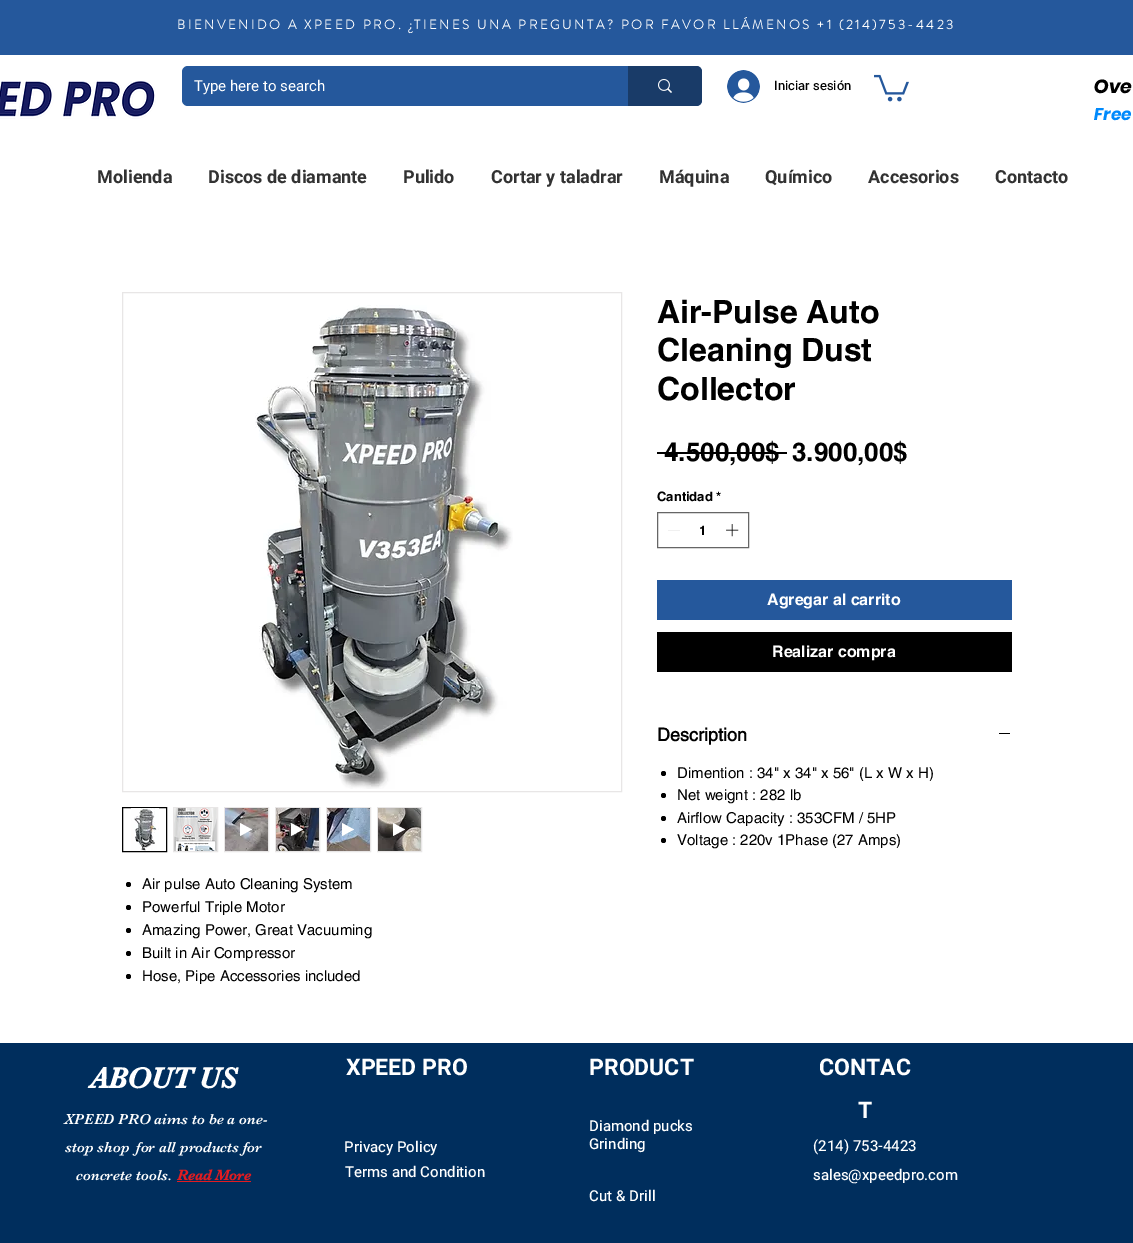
%!PS
<< /PageSize [1133 1243] >> setpagedevice
/rgb { 3 { 255 div 3 1 roll } repeat setrgbcolor } def
/font { [ exch dup neg 0 0 3 -1 roll 0 0 ] selectfont } def
/text { moveto show } def
/circle { newpath 0 360 arc closepath } def
/roundrect { 5 dict begin { /r /h /w /y /x } { exch def } forall
  x r add y moveto x w add y 2 copy h add r arct x w add y h add x 1 index r arct
  x y h add x y r arct x y 2 copy exch w add exch r arct closepath end } def
/picture { 5 dict begin { /h /w /y /x /name } { exch def } forall
  gsave x y translate w h scale
  w h 8 [w 0 0 h 0 0] name (r) file false 3 colorimage grestore end } def
0 1243 translate 1 -1 scale
4 setmiterlimit
255 255 255 rgb
0 0 1133 1243 rectfill
37 88 156 rgb
0 0 1133 55 rectfill
(img_01.rgb) 0 81 156 38 picture
182 66 520 40 6 roundrect fill
25 59 104 rgb
628 66 moveto 68 0 rlineto 3.5 0 6 2.5 6 6 rcurveto 0 28 rlineto 0 3.5 -2.5 6 -6 6 rcurveto -68 0 rlineto closepath fill
(img_02.rgb) 658 79 14 14 picture
(img_03.rgb) 727 70 33 33 picture
(img_04.rgb) 874 74 35 28 picture
0 0 0 rgb
657 452 130 2 rectfill
102 102 102 rgb
657.5 512.5 91 35 rectstroke
227 227 227 rgb
680 530 moveto 0 0.5 rlineto -12 0 rlineto 0 -0.5 rlineto closepath eofill
(img_05.rgb) 726 524 13 13 picture
37 88 156 rgb
657 580 355 40 rectfill
0 0 0 rgb
657 632 355 40 rectfill
999 733 11 1 rectfill
663.5 773.5 2.5 circle fill
663.5 795.5 2.5 circle fill
663.5 818.5 2.5 circle fill
663.5 840.5 2.5 circle fill
232 230 230 rgb
122.5 292.5 499 499 rectstroke
(img_06.rgb) 255 305 258 484 picture
0 0 0 rgb
122.5 807.5 44 44 rectstroke
(img_07.rgb) 131 808 28 43 picture
232 230 230 rgb
173.5 807.5 44 44 rectstroke
(img_08.rgb) 174 808 43 43 picture
224.5 807.5 44 44 rectstroke
(img_09.rgb) 225 808 43 43 picture
275.5 807.5 44 44 rectstroke
(img_10.rgb) 276 808 43 43 picture
255 255 255 rgb
240 823 moveto 0 13 rlineto 12 -6.5 rlineto closepath 291 823 moveto 0 13 rlineto 12 -6.5 rlineto closepath fill
232 230 230 rgb
326.5 807.5 44 44 rectstroke
(img_11.rgb) 327 808 43 43 picture
377.5 807.5 44 44 rectstroke
(img_12.rgb) 378 808 43 43 picture
255 255 255 rgb
342 823 moveto 0 13 rlineto 12 -6.5 rlineto closepath 393 823 moveto 0 13 rlineto 12 -6.5 rlineto closepath fill
0 0 0 rgb
128.5 884.5 2.5 circle fill
128.5 907.5 2.5 circle fill
128.5 930.5 2.5 circle fill
128.5 953.5 2.5 circle fill
128.5 976.5 2.5 circle fill
0 46 93 rgb
0 1043 1133 200 rectfill
226 28 33 rgb
177 1181 74 1 rectfill
/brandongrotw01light-Bold 13 font
255 255 255 rgb
177 29 moveto 2.6 0 (BIENVENIDO A XPEED PRO. ¿TIENES UNA PREGUNTA? POR FAVOR LLÁMENOS +1 \(214\)753-4423) ashow
/Heebo-Regular 15 font
(Type here to search) 194 91 text
/Heebo-Medium 13 font
0 0 0 rgb
(Iniciar sesión) 774 90 text
/Poppins-BoldItalic 19 font
(Ove) 1094 93 text
/Poppins-BoldItalic 17 font
0 138 252 rgb
(Free) 1094 120 text
/Heebo-Bold 18 font
50 50 50 rgb
(Molienda) 97 183 text
(Discos de diamante) 208 183 text
(Pulido) 403 183 text
(Cortar y taladrar) 491 183 text
(Máquina) 659 183 text
(Químico) 765 183 text
(Accesorios) 868 183 text
(Contacto) 995 183 text
/helvetica-Bold 32 font
0 0 0 rgb
(Air-Pulse Auto) 657 323 text
(Cleaning Dust) 657 361 text
(Collector) 657 400 text
/helvetica-Bold 26 font
(4.500,00$) 664 461 text
(3.900,00$) 792 461 text
/helvetica-Bold 13 font
(Cantidad) 657 501 text
(*) 716 501 text
(1) 699 535 text
/helvetica-Bold 16 font
255 255 255 rgb
(Agregar al carrito) 767 605 text
(Realizar compra) 772 657 text
/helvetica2-Bold 18 font
0 0 0 rgb
(Description) 657 741 text
/helvetica-Regular 15 font
(Dimention : 34" x 34" x 56" \(L x W x H\)) 677 778 text
(Net weignt : 282 lb) 677 800 text
(Airflow Capacity : 353CFM / 5HP) 677 823 text
(Voltage : 220v 1Phase \(27 Amps\)) 677 845 text
(Air pulse Auto Cleaning System) 142 889 text
(Powerful Triple Motor) 142 912 text
(Amazing Power, Great Vacuuming) 142 935 text
(Built in Air Compressor) 142 958 text
(Hose, Pipe Accessories included) 142 981 text
/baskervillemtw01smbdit-Bold 30 font
255 255 255 rgb
(ABOUT US) 90 1088 text
/baskervillemtw01smbdit-Regular 15 font
(XPEED PRO aims to be a one-) 64 1124 text
(stop shop) 65 1152 text
(for all products for) 136 1152 text
(concrete tools.) 76 1180 text
/baskervillemtw01smbdit-Bold 15 font
226 28 33 rgb
(Read More) 177 1180 text
/Heebo-Bold 23 font
255 255 255 rgb
(XPEED PRO) 346 1075 text
(PRODUCT) 589 1075 text
(CONTAC) 819 1075 text
(T) 858 1118 text
/Heebo-Medium 15 font
(Privacy Policy) 344 1152 text
(Grinding) 589 1149 text
(\(214\) 753-4423) 813 1151 text
(Terms and Condition) 345 1177 text
(sales@xpeedpro.com) 813 1180 text
(Cut & Drill) 589 1201 text
(Diamond pucks) 589 1131 text
showpage
